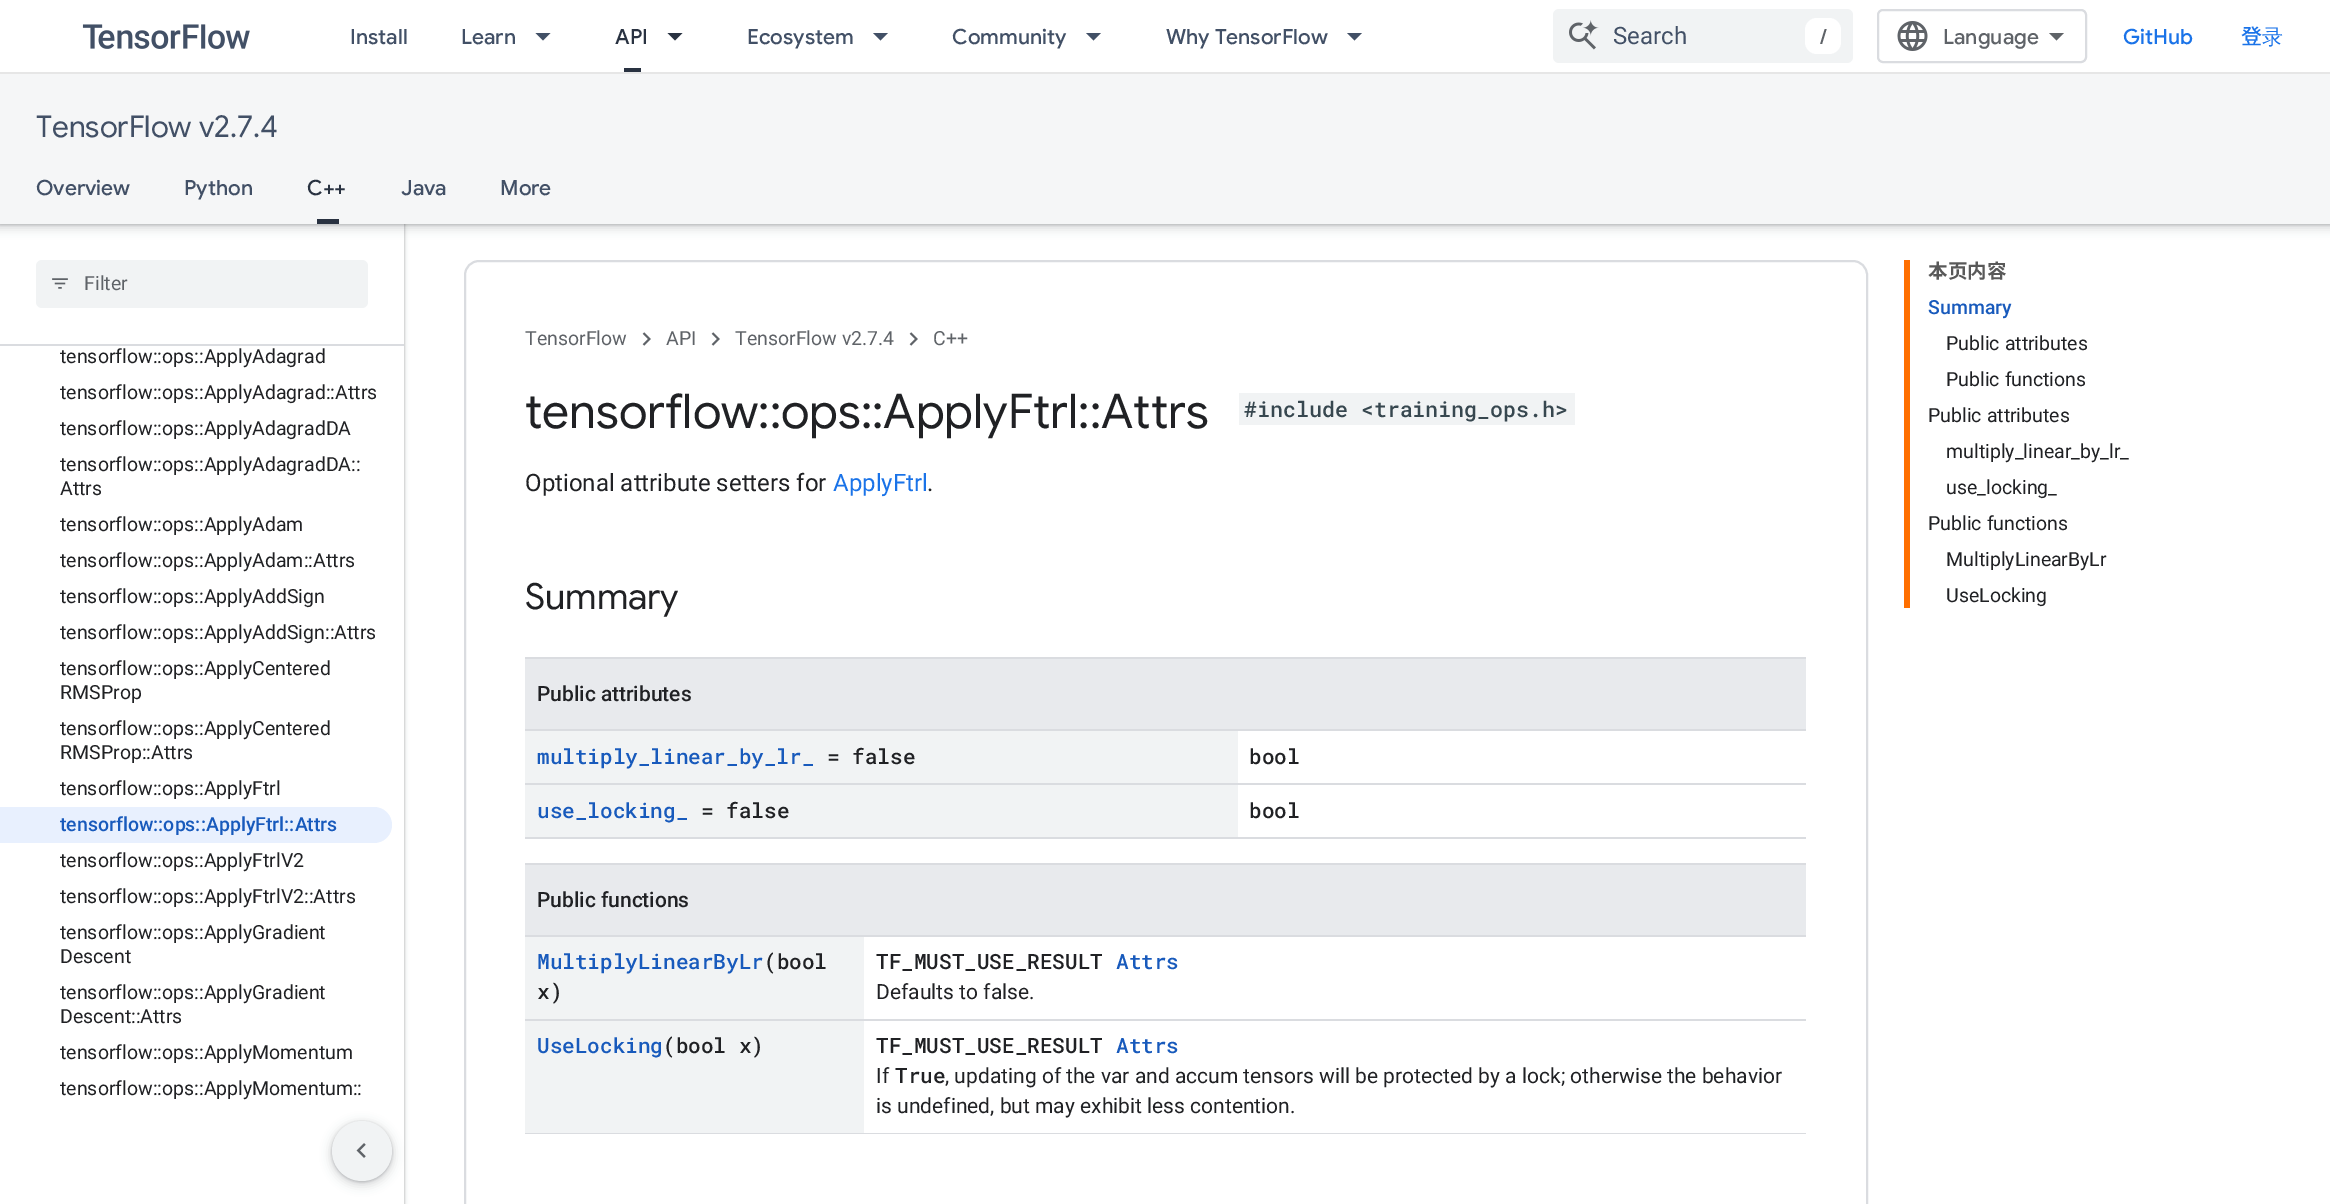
%!PS
<< /PageSize [2330 1204] /PageUsesTransparency true >> setpagedevice
/rgb { 3 { 255 div 3 1 roll } repeat setrgbcolor } def
/font { [ exch dup neg 0 0 3 -1 roll 0 0 ] selectfont } def
/text { moveto show } def
/alpha { dup .setfillconstantalpha .setstrokeconstantalpha } def
/circle { newpath 0 360 arc closepath } def
/roundrect { 5 dict begin { /r /h /w /y /x } { exch def } forall
  x r add y moveto x w add y 2 copy h add r arct x w add y h add x 1 index r arct
  x y h add x y r arct x y 2 copy exch w add exch r arct closepath end } def
/shadow { 12 dict begin { /a /b /q /h /w /y /x } { exch def } forall gsave /was 0 def
  9 -2 -9 { dup b mul 4 div /e exch def 1 sub .425 mul 2.718 exch exp 1 add a .99 .min exch div /now exch def
    1 1 now sub 1 was sub div sub alpha /was now def
    w h .min e 2 mul add 0 gt { x e sub y e sub w e 2 mul add h e 2 mul add
      q e add b .6 mul add w h .min 2 div e add .min 0 .max roundrect fill } if } for grestore end } def
/picture { 5 dict begin { /h /w /y /x /name } { exch def } forall
  gsave x y translate w h scale
  w h 8 [w 0 0 h 0 0] name (r) file false 3 colorimage grestore end } def
0 .pushpdf14devicefilter
0 1204 translate 1 -1 scale
4 setmiterlimit
255 255 255 rgb
0 0 2330 1204 rectfill
60 64 67 rgb
-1 0 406 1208 0 2 0.15 shadow
0 2 404 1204 0 1.5 0.3 shadow
255 255 255 rgb
0 346 404 858 rectfill
0 224 404 120 rectfill
60 64 67 rgb
-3 74 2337 156 0 4.5 0.15 shadow
0 75 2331 150 0 1.5 0.3 shadow
255 255 255 rgb
0 0 2330 72 rectfill
230 230 230 rgb
0 72 2330 2 rectfill
(img_01.rgb) 82 24 168 25 picture
66 80 102 rgb
535.5 33 moveto 15 0 rlineto -7.5 7.5 rlineto closepath fill
41 50 65 rgb
624 68 17 4 rectfill
667.5 33 moveto 15 0 rlineto -7.5 7.5 rlineto closepath fill
66 80 102 rgb
873 33 moveto 15 0 rlineto -7.5 7.5 rlineto closepath fill
1086 33 moveto 15 0 rlineto -7.5 7.5 rlineto closepath fill
1347 33 moveto 15 0 rlineto -7.5 7.5 rlineto closepath fill
241 243 244 rgb
1553 9 300 54 6 roundrect fill
(img_02.rgb) 1569 20 30 30 picture
255 255 255 rgb
1805 18 36 36 12 roundrect fill
218 220 224 rgb
2 setlinewidth
1878 10 208 52 5 roundrect stroke
(img_03.rgb) 1897 21 31 30 picture
95 99 104 rgb
2056.5 40.5 moveto -7.5 -7.5 rlineto 15 0 rlineto closepath fill
245 246 247 rgb
0 74 2330 150 rectfill
41 50 65 rgb
317 219 22 5 rectfill
218 220 224 rgb
0 344 404 2 rectfill
241 243 244 rgb
36 260 332 48 6 roundrect fill
(img_04.rgb) 52 278 16 11 picture
232 240 254 rgb
0 807 moveto 374 0 rlineto 10 0 18 8 18 18 rcurveto 0 10 -8 18 -18 18 rcurveto -374 0 rlineto closepath fill
218 220 224 rgb
465 261 1402 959 14 roundrect stroke
(img_05.rgb) 642 332 9 14 picture
(img_05.rgb) 711 332 9 14 picture
(img_05.rgb) 909 332 9 14 picture
241 243 244 rgb
1239 393 336 32 rectfill
218 220 224 rgb
525 657 1281 2 rectfill
525 729 1281 2 rectfill
232 234 237 rgb
525 659 1281 70 rectfill
218 220 224 rgb
525 783 1281 2 rectfill
241 243 244 rgb
525 731 713 52 rectfill
218 220 224 rgb
525 837 1281 2 rectfill
241 243 244 rgb
525 785 713 52 rectfill
218 220 224 rgb
525 863 1281 2 rectfill
525 935 1281 2 rectfill
232 234 237 rgb
525 865 1281 70 rectfill
218 220 224 rgb
525 1019 1281 2 rectfill
241 243 244 rgb
525 937 339 82 rectfill
218 220 224 rgb
525 1133 1281 1 rectfill
241 243 244 rgb
525 1021 339 112 rectfill
255 111 0 rgb
1904 260 6 348 rectfill
60 64 67 rgb
329 1121 66 66 33 4.5 0.15 shadow
332 1122 60 60 30 1.5 0.3 shadow
241 243 244 rgb
362 1151 30 circle fill
(img_06.rgb) 356 1143 10 15 picture
/GoogleSans-Medium 21 font
66 80 102 rgb
(Install) 350 44 text
(Learn) 461 44 text
41 50 65 rgb
(API) 615 44 text
66 80 102 rgb
(Ecosystem) 747 44 text
(Community) 952 44 text
(Why TensorFlow) 1166 44 text
/Roboto-Regular 24 font
(Search) 1613 44 text
/GoogleSans-Medium 21 font
95 99 104 rgb
(/) 1820 44 text
(Language) 1943 44 text
26 115 232 rgb
(GitHub) 2123 44 text
/NotoSansJP-Medium 21 font
(登) 2241 44 text
/WenQuanYiZenHei-Medium 21 font
(录) 2262 44 text
/GoogleSans-Regular 30 font
66 80 102 rgb
(TensorFlow v2.7.4) 36 137 text
/GoogleSans-Medium 21 font
(Overview) 36 195 text
(Python) 184 195 text
41 50 65 rgb
(C++) 307 195 text
66 80 102 rgb
(Java) 401 195 text
(More) 500 195 text
/Roboto-Regular 19.5 font
95 99 104 rgb
(Filter) 84 290 text
32 33 36 rgb
(tensorflow::ops::ApplyAdagrad) 60 363 text
(tensorflow::ops::ApplyAdagrad::Attrs) 60 399 text
(tensorflow::ops::ApplyAdagradDA) 60 435 text
(tensorflow::ops::ApplyAdagradDA::) 60 471 text
(Attrs) 60 495 text
(tensorflow::ops::ApplyAdam) 60 531 text
(tensorflow::ops::ApplyAdam::Attrs) 60 567 text
(tensorflow::ops::ApplyAddSign) 60 603 text
(tensorflow::ops::ApplyAddSign::Attrs) 60 639 text
(tensorflow::ops::ApplyCentered) 60 675 text
(RMSProp) 60 699 text
(tensorflow::ops::ApplyCentered) 60 735 text
(RMSProp::Attrs) 60 759 text
(tensorflow::ops::ApplyFtrl) 60 795 text
/Roboto-Medium 19.5 font
24 90 188 rgb
(tensorflow::ops::ApplyFtrl::Attrs) 60 831 text
/Roboto-Regular 19.5 font
32 33 36 rgb
(tensorflow::ops::ApplyFtrlV2) 60 867 text
(tensorflow::ops::ApplyFtrlV2::Attrs) 60 903 text
(tensorflow::ops::ApplyGradient) 60 939 text
(Descent) 60 963 text
(tensorflow::ops::ApplyGradient) 60 999 text
(Descent::Attrs) 60 1023 text
(tensorflow::ops::ApplyMomentum) 60 1059 text
(tensorflow::ops::ApplyMomentum::) 60 1095 text
95 99 104 rgb
(TensorFlow) 525 345 text
(API) 666 345 text
(TensorFlow v2.7.4) 735 345 text
(C++) 933 345 text
/GoogleSans-Regular 48 font
32 33 36 rgb
(tensorflow::ops::ApplyFtrl::Attrs) 525 428 text
/RobotoMono-Medium 21.6 font
55 71 79 rgb
(#include <training_ops.h>) 1244 417 text
/Roboto-Regular 24 font
32 33 36 rgb
(Optional attribute setters for) 525 491 text
26 115 232 rgb
(ApplyFtrl) 833 491 text
32 33 36 rgb
(.) 927 491 text
/GoogleSans-Regular 36 font
(Summary) 525 609 text
/Roboto-Medium 21 font
(Public attributes) 537 701 text
/RobotoMono-Medium 21 font
24 90 188 rgb
(multiply_linear_by_lr_) 537 764 text
32 33 36 rgb
(= false) 827 764 text
(bool) 1249 764 text
24 90 188 rgb
(use_locking_) 537 818 text
32 33 36 rgb
(= false) 701 818 text
(bool) 1249 818 text
/Roboto-Medium 21 font
(Public functions) 537 907 text
/RobotoMono-Medium 21 font
24 90 188 rgb
(MultiplyLinearByLr) 537 969 text
32 33 36 rgb
(\(bool) 764 969 text
(x\)) 537 999 text
(TF_MUST_USE_RESULT) 876 969 text
24 90 188 rgb
(Attrs) 1116 969 text
/Roboto-Regular 21 font
32 33 36 rgb
(Defaults to false.) 876 999 text
/RobotoMono-Medium 21 font
24 90 188 rgb
(UseLocking) 537 1053 text
32 33 36 rgb
(\(bool x\)) 663 1053 text
(TF_MUST_USE_RESULT) 876 1053 text
24 90 188 rgb
(Attrs) 1116 1053 text
/Roboto-Regular 21 font
32 33 36 rgb
(If) 876 1083 text
/RobotoMono-Medium 21 font
(True) 895 1083 text
/Roboto-Regular 21 font
(, updating of the var and accum tensors will be protected by a lock; otherwise the behavior) 945 1083 text
(is undefined, but may exhibit less contention.) 876 1113 text
/NotoSansJP-Bold 19.5 font
89 89 89 rgb
(本页内容) 1928 278 text
/Roboto-Medium 19.5 font
24 90 188 rgb
(Summary) 1928 314 text
/Roboto-Regular 19.5 font
32 33 36 rgb
(Public attributes) 1946 350 text
(Public functions) 1946 386 text
(Public attributes) 1928 422 text
(multiply_linear_by_lr_) 1946 458 text
(use_locking_) 1946 494 text
(Public functions) 1928 530 text
(MultiplyLinearByLr) 1946 566 text
(UseLocking) 1946 602 text
.poppdf14devicefilter showpage
